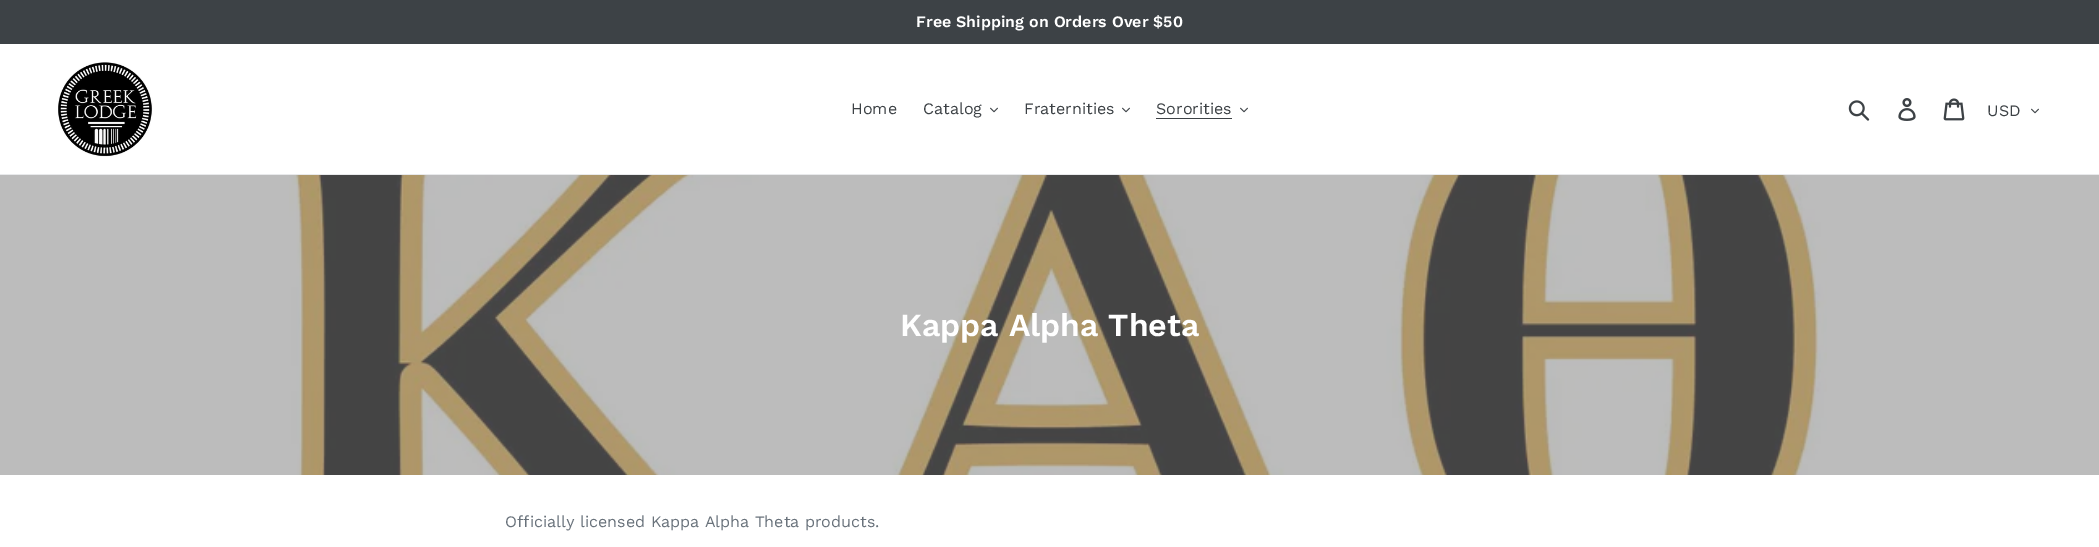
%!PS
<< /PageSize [2099 547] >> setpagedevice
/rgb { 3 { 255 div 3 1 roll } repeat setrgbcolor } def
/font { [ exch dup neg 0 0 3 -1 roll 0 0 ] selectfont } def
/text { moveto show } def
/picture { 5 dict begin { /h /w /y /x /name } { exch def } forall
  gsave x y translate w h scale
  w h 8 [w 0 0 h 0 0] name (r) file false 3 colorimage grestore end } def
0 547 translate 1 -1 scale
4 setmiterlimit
255 255 255 rgb
0 0 2099 547 rectfill
188 188 188 rgb
0 175 2099 300 rectfill
61 66 70 rgb
0 0 2099 44 rectfill
232 233 235 rgb
0 174 2099 1 rectfill
(img_01.rgb) 58 62 95 95 picture
(img_02.rgb) 990 107 8 6 picture
(img_02.rgb) 1122 107 8 6 picture
61 66 70 rgb
1156 118 76 1 rectfill
(img_02.rgb) 1240 107 8 6 picture
(img_03.rgb) 1848 100 22 21 picture
(img_04.rgb) 1898 98 18 23 picture
(img_05.rgb) 1943 98 22 23 picture
(img_02.rgb) 2031 108 8 6 picture
(img_06.rgb) 289 175 1538 300 picture
/WorkSans-SemiBold 16 font
255 255 255 rgb
(Free Shipping on Orders Over $50) 916 27 text
/WorkSans-Regular 16 font
61 66 70 rgb
(Home) 851 114 text
(Catalog) 923 114 text
(Fraternities) 1024 114 text
(Sororities) 1156 114 text
(USD) 1987 116 text
/WorkSans-SemiBold 32 font
255 255 255 rgb
(Kappa Alpha Theta) 900 336 text
/WorkSans-Regular 16 font
105 114 123 rgb
(Officially licensed Kappa Alpha Theta products.) 505 527 text
showpage
